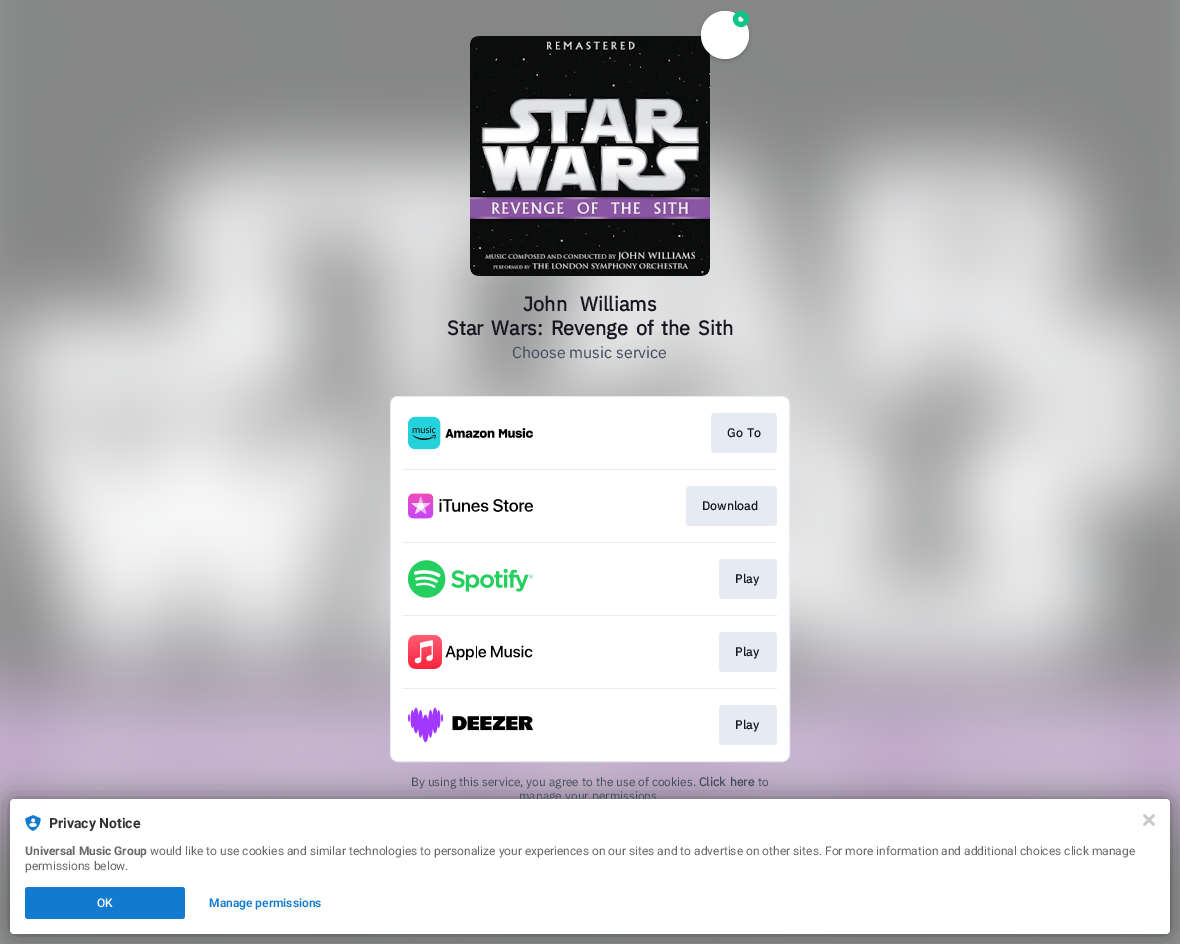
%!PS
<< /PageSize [1180 944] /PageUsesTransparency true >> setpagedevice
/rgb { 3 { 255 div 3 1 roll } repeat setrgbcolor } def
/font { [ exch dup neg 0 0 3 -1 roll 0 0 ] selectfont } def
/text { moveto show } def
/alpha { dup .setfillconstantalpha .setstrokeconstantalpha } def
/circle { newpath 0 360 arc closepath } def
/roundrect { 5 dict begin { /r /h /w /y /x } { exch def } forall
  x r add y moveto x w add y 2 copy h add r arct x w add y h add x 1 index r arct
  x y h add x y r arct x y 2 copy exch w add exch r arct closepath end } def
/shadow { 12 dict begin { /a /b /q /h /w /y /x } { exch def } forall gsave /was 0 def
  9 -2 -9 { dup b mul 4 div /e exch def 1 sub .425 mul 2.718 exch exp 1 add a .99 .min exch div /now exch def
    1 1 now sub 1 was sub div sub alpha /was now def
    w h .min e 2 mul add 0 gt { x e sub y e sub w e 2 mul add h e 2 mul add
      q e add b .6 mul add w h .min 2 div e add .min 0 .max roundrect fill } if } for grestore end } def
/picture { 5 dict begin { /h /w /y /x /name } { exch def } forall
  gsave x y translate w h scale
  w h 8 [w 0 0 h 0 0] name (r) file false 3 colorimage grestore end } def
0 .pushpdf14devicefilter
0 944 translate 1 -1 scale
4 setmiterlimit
255 255 255 rgb
0 0 1180 944 rectfill
(img_01.rgb) 0 0 1180 944 picture
(img_02.rgb) 470 36 240 240 picture
0 0 0 rgb
701 13 48 48 24 2 0.2 shadow
255 255 255 rgb
725 35 24 circle fill
13 197 135 rgb
5 setlinewidth
741 19 5.5 circle stroke
230 234 242 rgb
1 setlinewidth
390.5 396.5 399 365 7.5 roundrect stroke
255 255 255 rgb
391 397 398 364 7 roundrect fill
(img_03.rgb) 408 416 125 34 picture
230 234 242 rgb
711 413 66 40 4 roundrect fill
403 469 374 1 rectfill
(img_04.rgb) 408 493 125 26 picture
686 486 91 40 4 roundrect fill
403 542 374 1 rectfill
(img_05.rgb) 408 560 125 38 picture
719 559 58 40 4 roundrect fill
403 615 374 1 rectfill
(img_06.rgb) 408 635 125 34 picture
719 632 58 40 4 roundrect fill
403 688 374 1 rectfill
(img_07.rgb) 408 707 125 36 picture
719 705 58 40 4 roundrect fill
0 0 0 rgb
10 799 1160 135 4 2 0.12 shadow
10 799 1160 135 4 12 0.3 shadow
/IBMPlexSans-Bold 20 font
24 23 33 rgb
523 311 moveto 8 0 32 (John Williams) widthshow
447 335 moveto 3 0 32 (Star Wars: Revenge of the Sith) widthshow
/IBMPlexSans-Regular 16 font
69 75 95 rgb
(Choose music service) 512 358 text
/IBMPlexSans-Bold 12 font
24 23 33 rgb
727 437 moveto 1 0 32 0.25 0 (Go To) awidthshow
702 510 moveto 0.25 0 (Download) ashow
735 583 moveto 0.25 0 (Play) ashow
735 656 moveto 0.25 0 (Play) ashow
735 729 moveto 0.25 0 (Play) ashow
/IBMPlexSans-Regular 12 font
69 75 95 rgb
(By using this service, you agree to the use of cookies.) 411 786 text
/IBMPlexSans-Bold 12 font
699 786 moveto 2 0 32 (Click here) widthshow
/IBMPlexSans-Regular 12 font
(to) 758 786 text
(manage your permissions.) 519 800 text
255 255 255 rgb
10 799 1160 135 4 roundrect fill
(img_08.rgb) 25 815 16 16 picture
/Roboto-Bold 14 font
50 50 50 rgb
(Privacy Notice) 49 828 text
/Roboto-Bold 12 font
104 104 104 rgb
(Universal Music Group) 25 855 text
/Roboto-Regular 12 font
(would like to use cookies and similar technologies to personalize your experiences on our sites and to advertise on other sites. For more information and additional choices click manage) 150 855 text
(permissions below.) 25 870 text
19 123 207 rgb
25 887 160 32 3 roundrect fill
/Roboto-Medium 12 font
255 255 255 rgb
(OK) 97 907 text
/Roboto-SemiBold 12 font
19 123 207 rgb
(Manage permissions) 209 907 text
(img_09.rgb) 1143 814 12 12 picture
.poppdf14devicefilter showpage
